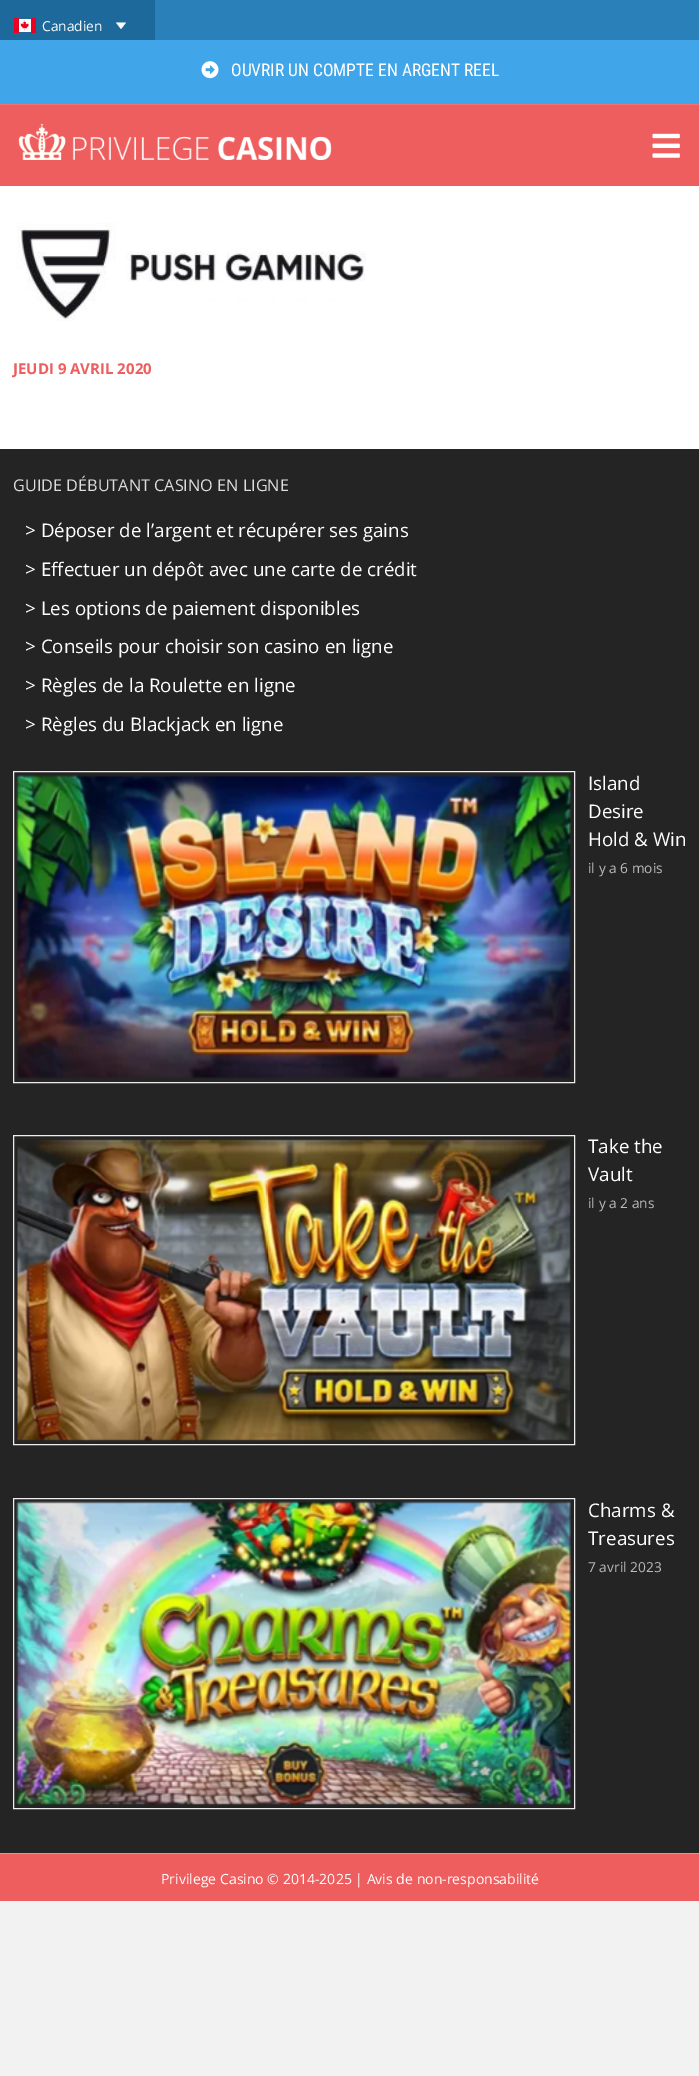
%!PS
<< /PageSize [699 2076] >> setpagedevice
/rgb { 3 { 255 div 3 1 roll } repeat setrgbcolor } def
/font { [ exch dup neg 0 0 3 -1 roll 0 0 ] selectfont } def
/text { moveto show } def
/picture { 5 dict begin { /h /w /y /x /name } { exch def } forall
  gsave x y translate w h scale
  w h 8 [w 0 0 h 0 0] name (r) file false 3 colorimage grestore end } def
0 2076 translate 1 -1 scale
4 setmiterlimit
242 242 242 rgb
0 0 699 2076 rectfill
42 128 185 rgb
155 0 544 40 rectfill
241 114 114 rgb
0 104 699 1 rectfill
29 105 155 rgb
0 0 155 40 rectfill
(img_01.rgb) 14 18 22 15 picture
255 255 255 rgb
116 22.5 moveto 10 0 rlineto -5 6.5 rlineto closepath fill
65 166 233 rgb
0 40 699 64 rectfill
(img_02.rgb) 201 61 18 18 picture
239 94 94 rgb
0 105 699 81 rectfill
(img_03.rgb) 18 123 314 37 picture
(img_04.rgb) 652 133 28 25 picture
255 255 255 rgb
0 186 699 263 rectfill
(img_05.rgb) 16 222 350 99 picture
36 36 36 rgb
0 449 699 1404 rectfill
238 238 238 rgb
13.5 771.5 561 311 rectstroke
(img_06.rgb) 16 775 555 304 picture
13.5 1135.5 561 309 rectstroke
(img_07.rgb) 17 1139 554 302 picture
13.5 1498.5 561 310 rectstroke
(img_08.rgb) 16 1501 555 304 picture
239 94 94 rgb
0 1854 699 47 rectfill
255 137 137 rgb
0 1853 699 1 rectfill
/OpenSans-Regular 13.75 font
255 255 255 rgb
(Canadien) 42 31 text
/RobotoCondensed-Regular 17.5 font
(OUVRIR UN COMPTE EN ARGENT REEL) 231 76 text
/OpenSans-Bold 15 font
239 94 94 rgb
(JEUDI 9 AVRIL 2020) 13 374 text
/OpenSans-Regular 16.25 font
221 221 221 rgb
(GUIDE DÉBUTANT CASINO EN LIGNE) 13 491 text
/OpenSans-Regular 18.75 font
255 255 255 rgb
(> Déposer de l’argent et récupérer ses gains) 25 537 text
(> Effectuer un dépôt avec une carte de crédit) 25 576 text
(> Les options de paiement disponibles) 25 615 text
(> Conseils pour choisir son casino en ligne) 25 653 text
(> Règles de la Roulette en ligne) 25 692 text
(> Règles du Blackjack en ligne) 25 731 text
(Island) 588 790 text
(Desire) 588 818 text
(Hold & Win) 588 846 text
/OpenSans-Regular 13.75 font
187 187 187 rgb
(il y a 6 mois) 588 873 text
/OpenSans-Regular 18.75 font
255 255 255 rgb
(Take the) 588 1153 text
(Vault) 588 1181 text
/OpenSans-Regular 13.75 font
187 187 187 rgb
(il y a 2 ans) 588 1208 text
/OpenSans-Regular 18.75 font
255 255 255 rgb
(Charms &) 588 1517 text
(Treasures) 588 1545 text
/OpenSans-Regular 13.75 font
187 187 187 rgb
(7 avril 2023) 588 1572 text
/OpenSans-Regular 14.05 font
255 255 255 rgb
(Privilege Casino © 2014-2025 | Avis de non-responsabilité) 161 1884 text
showpage
